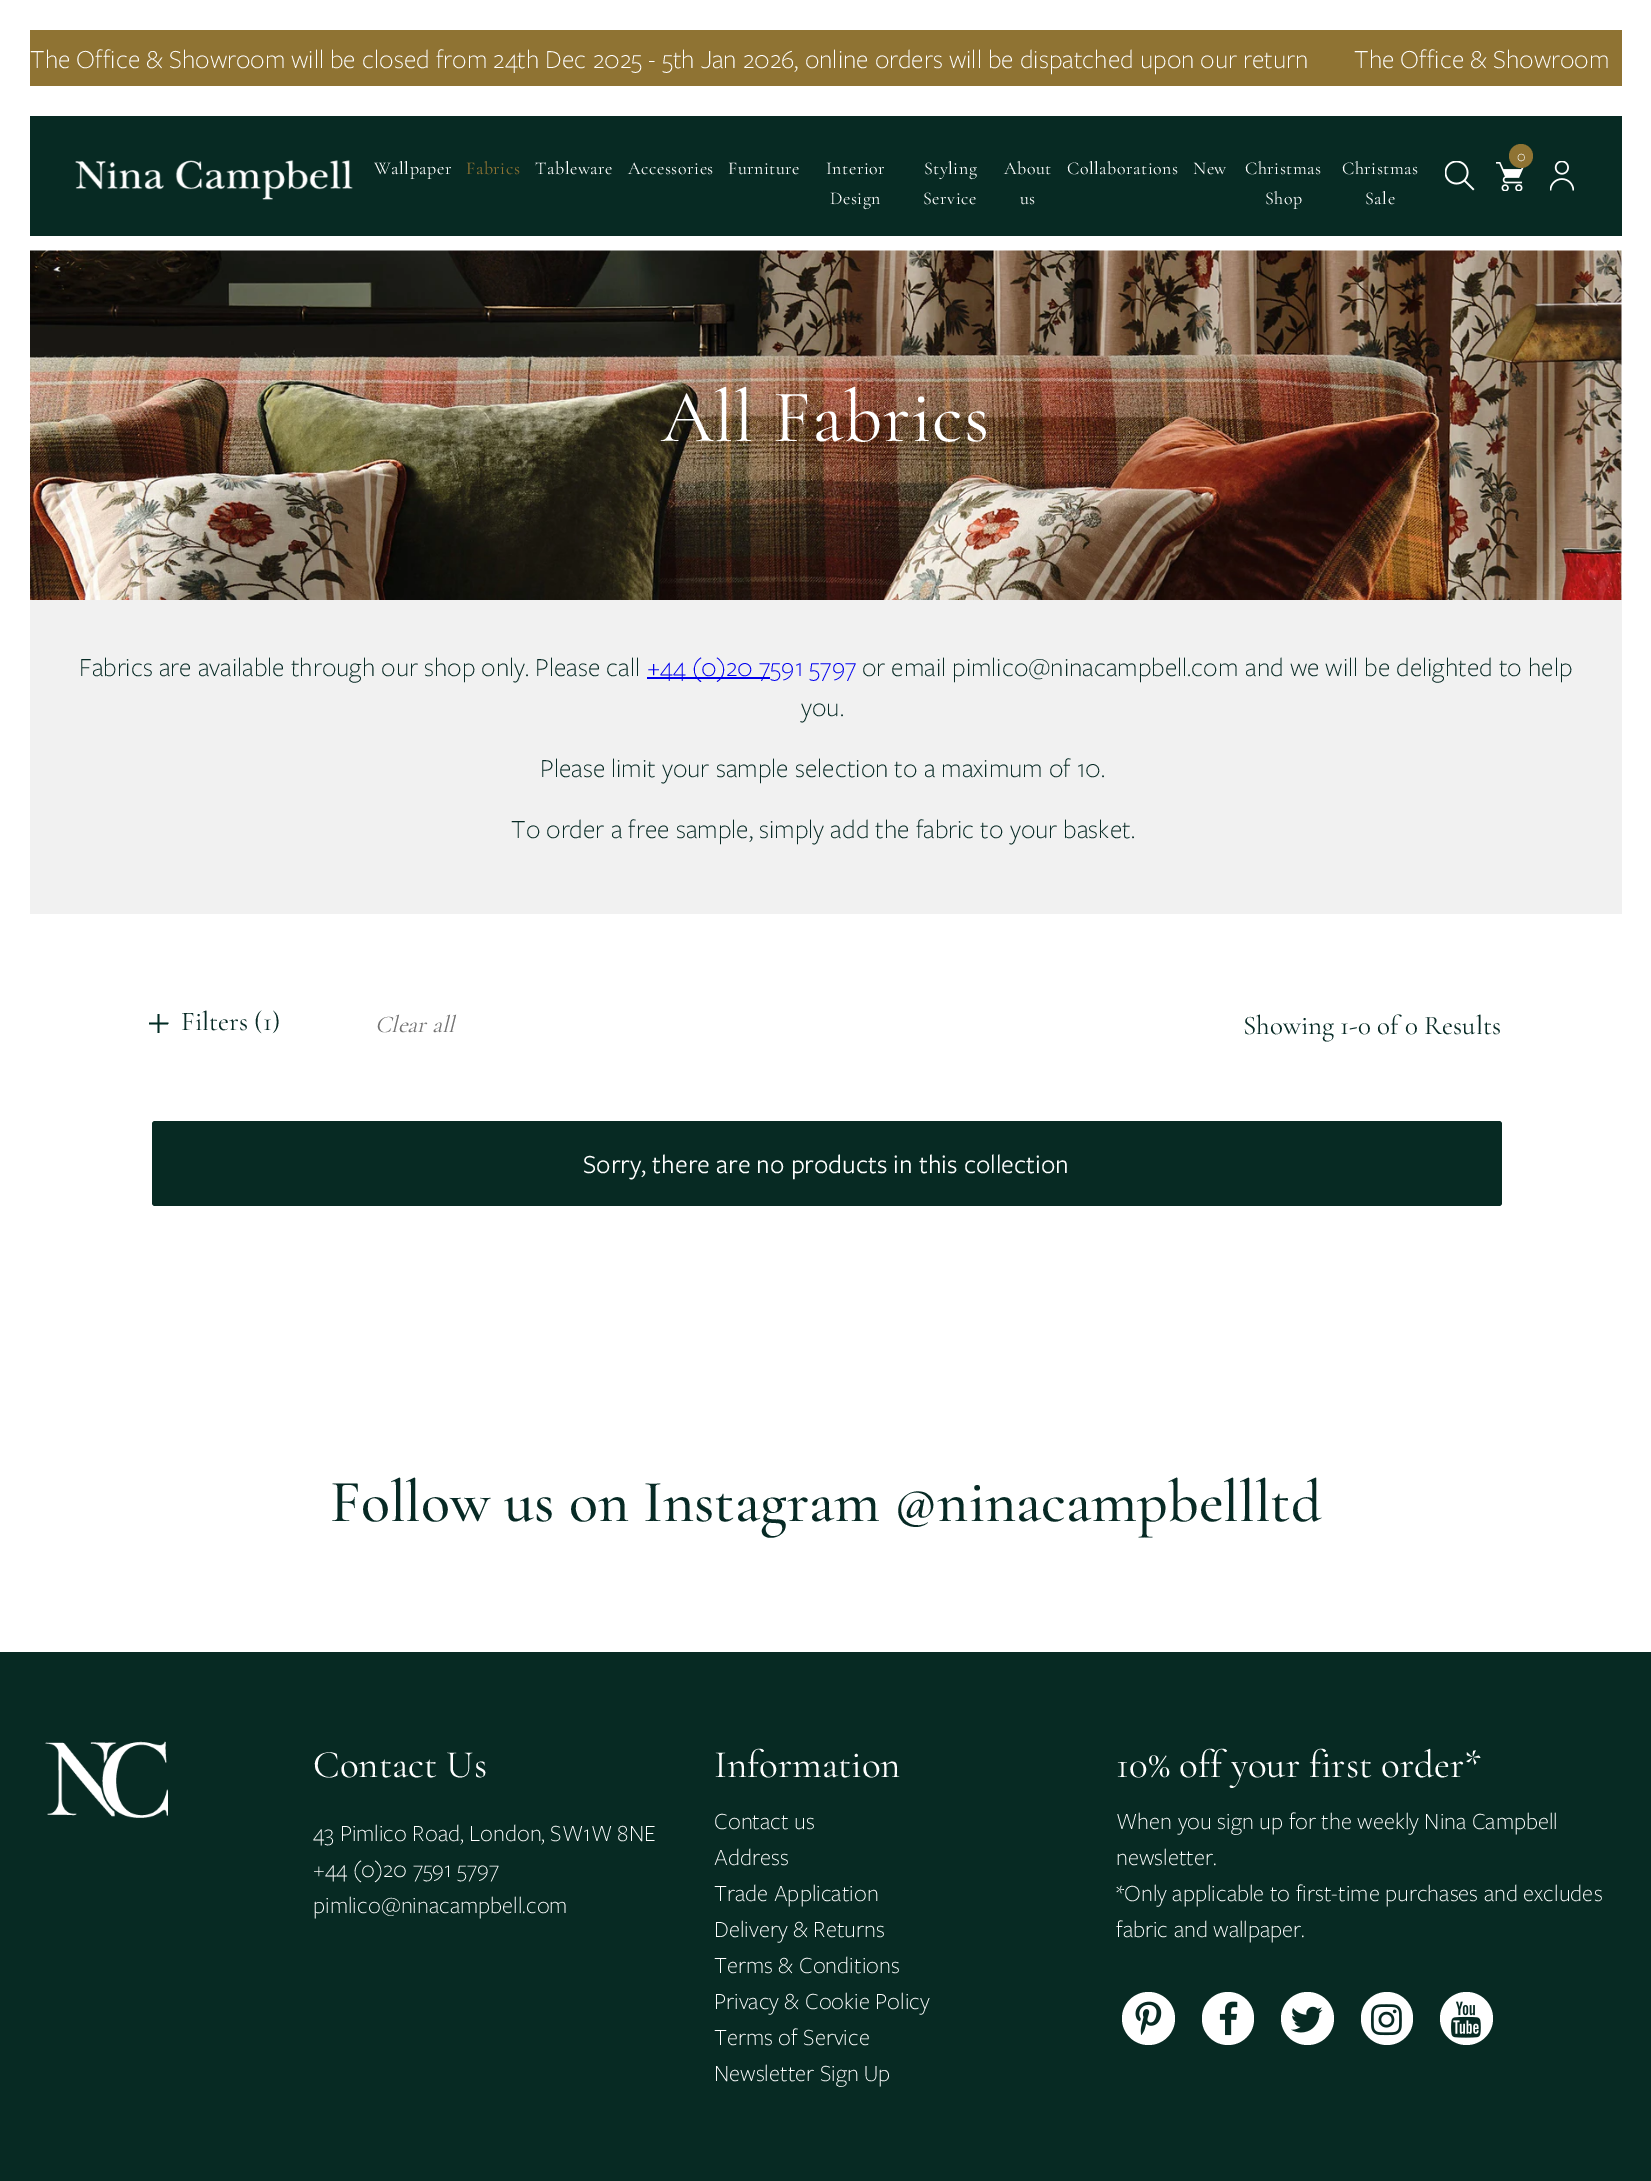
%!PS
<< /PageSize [1651 2181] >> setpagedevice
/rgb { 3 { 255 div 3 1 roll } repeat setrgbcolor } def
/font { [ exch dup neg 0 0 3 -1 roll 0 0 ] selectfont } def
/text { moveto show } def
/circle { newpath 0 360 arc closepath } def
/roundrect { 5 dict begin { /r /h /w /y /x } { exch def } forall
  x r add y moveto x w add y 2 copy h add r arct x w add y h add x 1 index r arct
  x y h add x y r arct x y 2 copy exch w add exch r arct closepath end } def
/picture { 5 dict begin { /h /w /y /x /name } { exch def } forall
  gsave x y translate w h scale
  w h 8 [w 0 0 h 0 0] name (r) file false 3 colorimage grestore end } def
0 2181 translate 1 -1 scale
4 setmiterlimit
255 255 255 rgb
0 0 1651 2181 rectfill
143 115 51 rgb
30 30 1592 56 rectfill
7 42 35 rgb
30 116 1592 120 rectfill
(img_01.rgb) 75 160 278 40 picture
(img_02.rgb) 1496 162 28 29 picture
143 115 51 rgb
1521 156 12 circle fill
(img_03.rgb) 1445 161 30 30 picture
(img_04.rgb) 1550 161 24 30 picture
(img_05.rgb) 30 250 1592 350 picture
241 241 241 rgb
30 600 1592 314 rectfill
0 0 238 rgb
647 677 123 2 rectfill
gsave
158 1012.5 moveto 11 10.5 rlineto -11 10.5 rlineto -10.5 -10.5 rlineto closepath clip newpath
0 43 35 rgb
1.8 setlinewidth
158.5 1014 moveto 0 19 rlineto stroke
grestore
gsave
158 1012.5 moveto 11 10.5 rlineto -11 10.5 rlineto -10.5 -10.5 rlineto closepath clip newpath
158 1012.5 moveto 11 10.5 rlineto -11 10.5 rlineto -10.5 -10.5 rlineto closepath clip newpath
0 43 35 rgb
1.8 setlinewidth
168.5 1023.5 moveto -19.5 0 rlineto stroke
grestore
7 42 35 rgb
152 1121 1350 85 3 roundrect fill
0 1652 1651 529 rectfill
(img_06.rgb) 45 1741 123 77 picture
255 255 255 rgb
1148.5 2018.5 26.5 circle fill
(img_07.rgb) 1135 2001 27 34 picture
1202 1992 52 53 26 roundrect fill
(img_08.rgb) 1219 2001 19 35 picture
1307.5 2018.5 26.5 circle fill
(img_09.rgb) 1291 2006 32 27 picture
1361 1992 52 53 26 roundrect fill
(img_10.rgb) 1371 2004 31 32 picture
1466.5 2018.5 26.5 circle fill
(img_11.rgb) 1451 2001 30 37 picture
/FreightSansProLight-Light 27 font
(The Office & Showroom will be closed from 24th Dec 2025 - 5th Jan 2026, online orders will be dispatched upon our return) 30 68 text
(The Office & Showroom) 1354 68 text
/FreightSansProLight-Light 15 font
(0) 1517 161 text
/CormorantGaramond-Regular 18 font
374 174 moveto 0.5 0 (Wallpaper) ashow
143 115 51 rgb
466 174 moveto 0.5 0 (Fabrics) ashow
255 255 255 rgb
535 174 moveto 0.5 0 (Tableware) ashow
628 174 moveto 0.5 0 (Accessories) ashow
728 174 moveto 0.5 0 (Furniture) ashow
826 174 moveto 0.5 0 (Interior) ashow
830 204 moveto 0.5 0 (Design) ashow
924 174 moveto 0.5 0 (Styling) ashow
923 204 moveto 0.5 0 (Service) ashow
1004 174 moveto 0.5 0 (About) ashow
1020 204 moveto 0.5 0 (us) ashow
1067 174 moveto 0.5 0 (Collaborations) ashow
1193 174 moveto 0.5 0 (New) ashow
1245 174 moveto 0.5 0 (Christmas) ashow
1265 204 moveto 0.5 0 (Shop) ashow
1342 174 moveto 0.5 0 (Christmas) ashow
1365 204 moveto 0.5 0 (Sale) ashow
/CormorantGaramond-Regular 75 font
661 441 moveto 0.75 0 (All Fabrics) ashow
/FreightSansProLight-Light 27 font
7 42 37 rgb
(Fabrics are available through our shop only. Please call) 79 676 text
0 0 238 rgb
(+44 \(0\)20 7591 5797) 647 676 text
7 42 37 rgb
(or email) 862 676 text
(pimlico@ninacampbell.com) 952 676 text
(and we will be delighted to help) 1245 676 text
(you.) 801 716 text
(Please limit your sample selection to a maximum of 10.) 540 777 text
(To order a free sample, simply add the fabric to your basket.) 511 838 text
/CormorantGaramond-Regular 27 font
(Filters \(1\)) 181 1030 text
/CormorantGaramond-Italic 24 font
114 114 114 rgb
(Clear all) 375 1032 text
/CormorantGaramond-Regular 27 font
7 42 37 rgb
(Showing 1-0 of 0 Results) 1243 1034 text
/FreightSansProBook-Regular 27 font
255 255 255 rgb
(Sorry, there are no products in this collection) 583 1173 text
/CormorantGaramond-Medium 60 font
7 42 37 rgb
(Follow us on Instagram @ninacampbellltd) 330 1521 text
/CormorantGaramond-Regular 39 font
255 255 255 rgb
(Contact Us) 313 1777 text
/FreightSansProLight-Light 24 font
(43 Pimlico Road, London, SW1W 8NE) 313 1841 text
(+44 \(0\)20 7591 5797) 313 1877 text
(pimlico@ninacampbell.com) 313 1913 text
/CormorantGaramond-Regular 39 font
(Information) 714 1777 text
/FreightSansProLight-Light 24 font
(Contact us) 714 1829 text
(Address) 714 1865 text
(Trade Application) 714 1901 text
(Delivery & Returns) 714 1937 text
(Terms & Conditions) 714 1973 text
(Privacy & Cookie Policy) 714 2009 text
(Terms of Service) 714 2045 text
(Newsletter Sign Up) 714 2081 text
/CormorantGaramond-Regular 39 font
(10% off your first order*) 1116 1777 text
/FreightSansProLight-Light 24 font
(When you sign up for the weekly Nina Campbell) 1116 1829 text
(newsletter.) 1116 1865 text
(*Only applicable to first-time purchases and excludes) 1116 1901 text
(fabric and wallpaper.) 1116 1937 text
showpage
